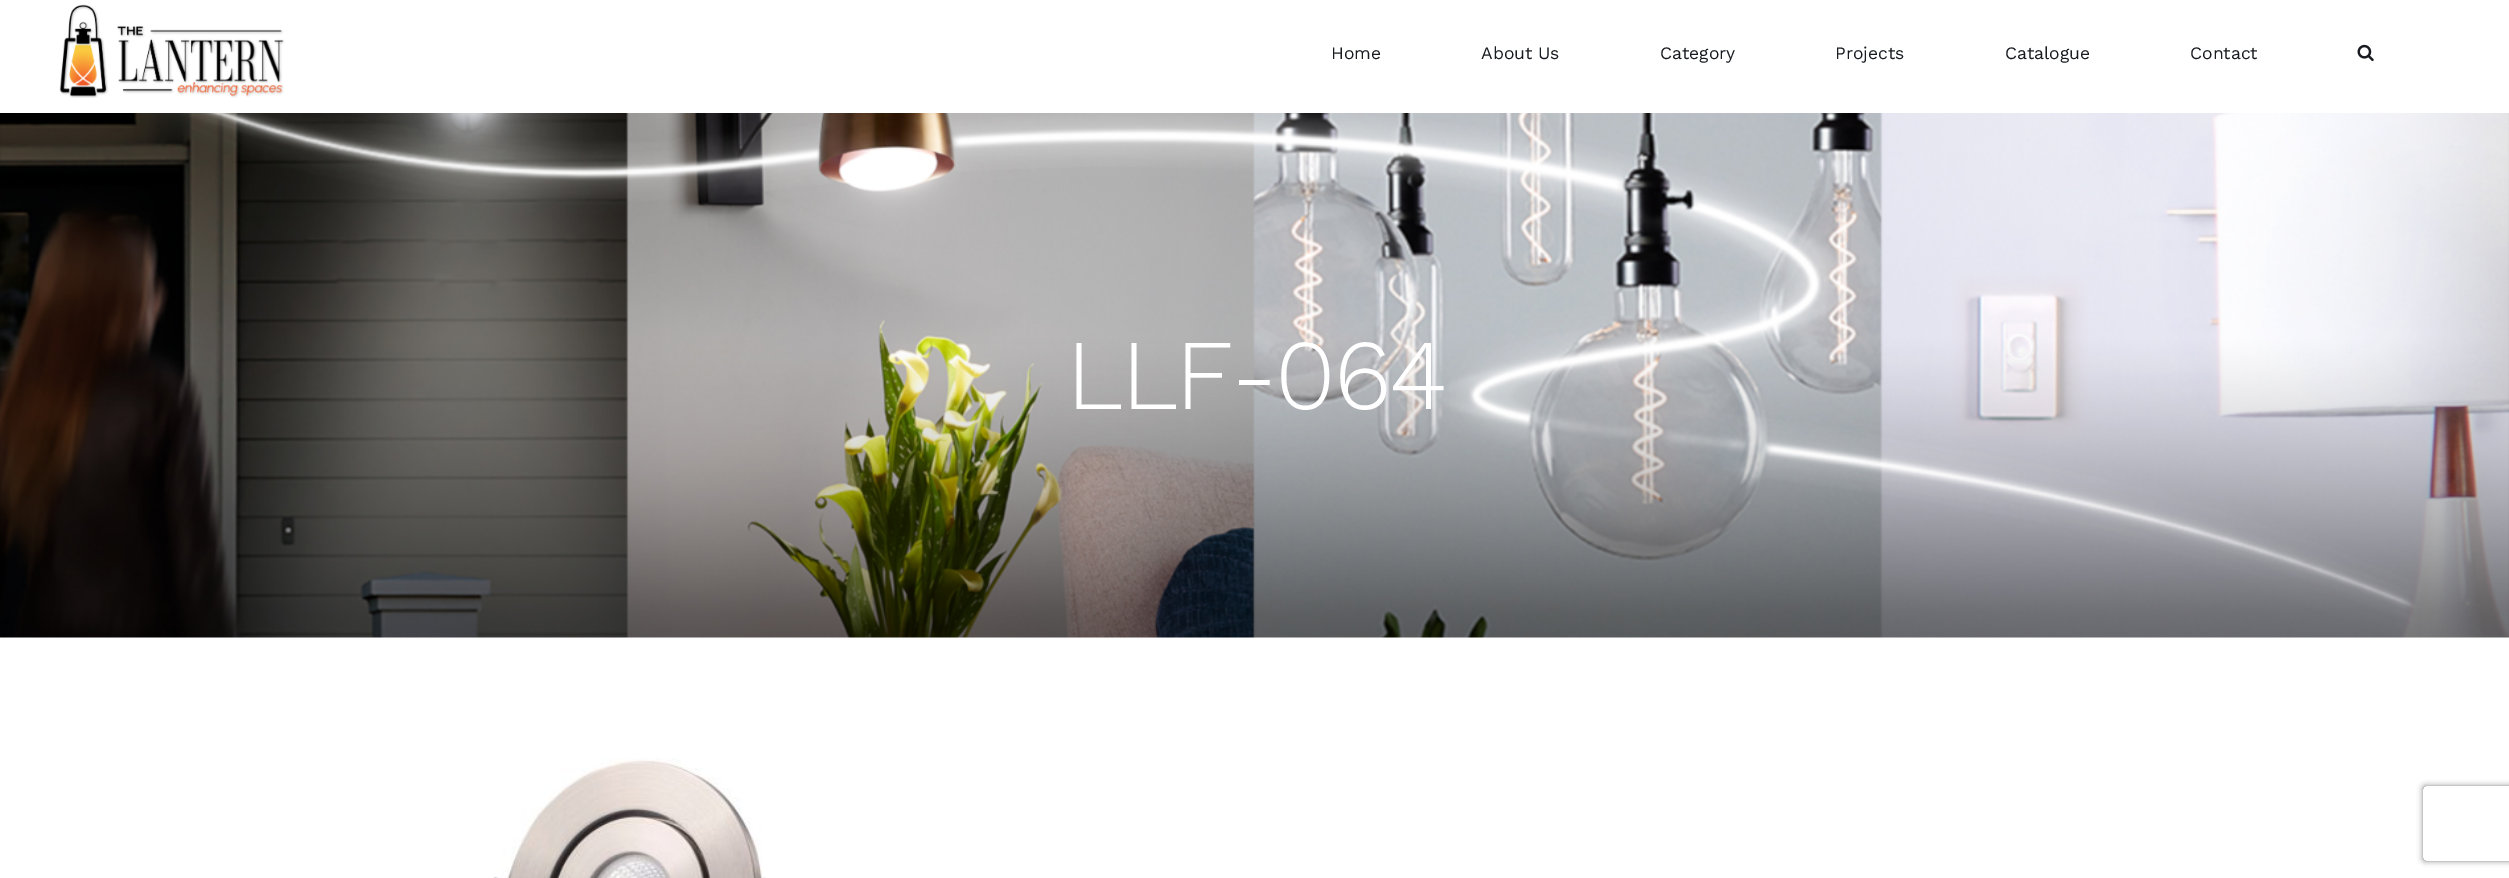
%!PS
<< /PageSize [2509 878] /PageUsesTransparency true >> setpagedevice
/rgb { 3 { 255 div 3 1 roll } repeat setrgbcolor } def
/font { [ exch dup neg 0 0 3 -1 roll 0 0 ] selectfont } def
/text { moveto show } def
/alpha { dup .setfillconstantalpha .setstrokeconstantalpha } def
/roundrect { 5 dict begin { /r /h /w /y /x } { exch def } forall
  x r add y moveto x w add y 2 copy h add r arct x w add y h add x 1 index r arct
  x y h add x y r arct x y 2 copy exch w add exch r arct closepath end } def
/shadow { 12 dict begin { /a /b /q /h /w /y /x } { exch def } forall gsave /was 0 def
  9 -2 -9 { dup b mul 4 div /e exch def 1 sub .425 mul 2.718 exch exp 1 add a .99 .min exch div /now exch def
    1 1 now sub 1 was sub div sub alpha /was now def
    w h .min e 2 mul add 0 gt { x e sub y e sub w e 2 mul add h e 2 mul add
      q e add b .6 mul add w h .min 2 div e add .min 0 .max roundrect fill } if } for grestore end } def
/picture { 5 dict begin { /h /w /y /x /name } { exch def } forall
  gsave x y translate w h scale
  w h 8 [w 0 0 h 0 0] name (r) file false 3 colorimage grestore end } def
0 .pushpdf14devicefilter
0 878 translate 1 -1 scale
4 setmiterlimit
255 255 255 rgb
0 0 2509 878 rectfill
(img_01.rgb) 59 4 226 94 picture
(img_02.rgb) 2357 44 17 18 picture
(img_03.rgb) 0 113 2509 525 picture
(img_04.rgb) 493 758 273 120 picture
gsave
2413 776 moveto 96 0 rlineto 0 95 rlineto -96 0 rlineto closepath 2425.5 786 moveto 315 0 rlineto 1.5 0 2.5 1 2.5 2.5 rcurveto 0 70 rlineto 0 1.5 -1 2.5 -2.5 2.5 rcurveto -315 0 rlineto -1.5 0 -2.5 -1 -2.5 -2.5 rcurveto 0 -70 rlineto 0 -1.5 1 -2.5 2.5 -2.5 rcurveto closepath eoclip newpath
128 128 128 rgb
2423 786 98 75 2.5 3 1 shadow
grestore
/WorkSans-Regular 17.5 font
24 27 32 rgb
(Home) 1331 59 text
(About Us) 1481 59 text
(Category) 1660 59 text
(Projects) 1835 59 text
(Catalogue) 2005 59 text
(Contact) 2190 59 text
/WorkSans-Light 100 font
255 255 255 rgb
1066 409 moveto -2.5 0 (LLF-064) ashow
.poppdf14devicefilter showpage
